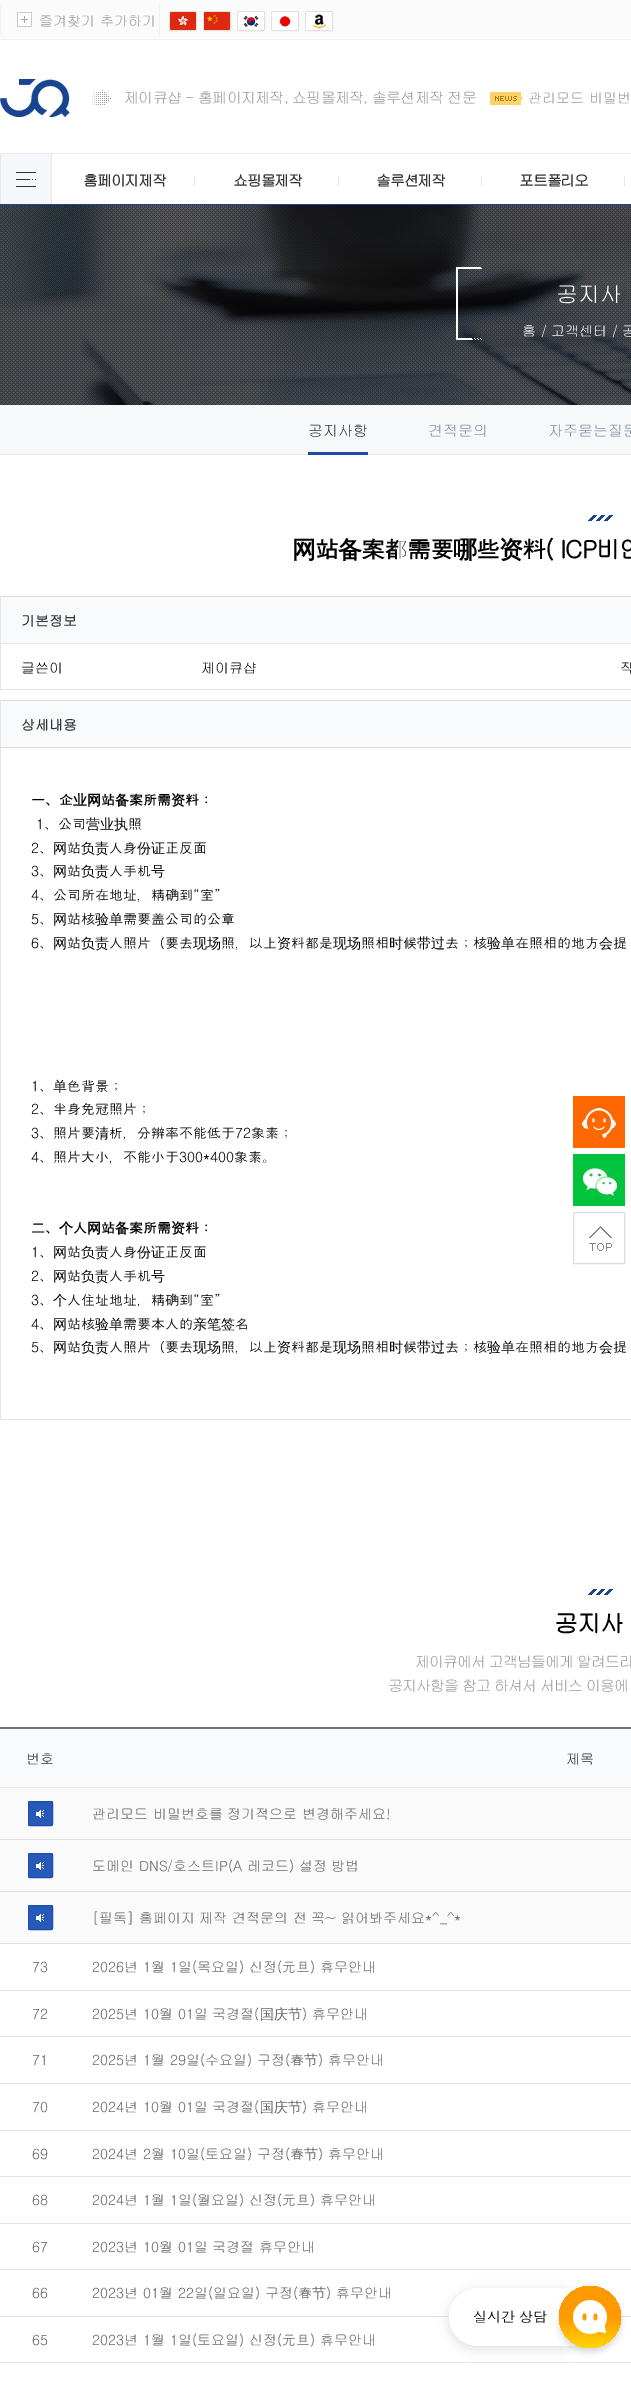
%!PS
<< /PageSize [631 2383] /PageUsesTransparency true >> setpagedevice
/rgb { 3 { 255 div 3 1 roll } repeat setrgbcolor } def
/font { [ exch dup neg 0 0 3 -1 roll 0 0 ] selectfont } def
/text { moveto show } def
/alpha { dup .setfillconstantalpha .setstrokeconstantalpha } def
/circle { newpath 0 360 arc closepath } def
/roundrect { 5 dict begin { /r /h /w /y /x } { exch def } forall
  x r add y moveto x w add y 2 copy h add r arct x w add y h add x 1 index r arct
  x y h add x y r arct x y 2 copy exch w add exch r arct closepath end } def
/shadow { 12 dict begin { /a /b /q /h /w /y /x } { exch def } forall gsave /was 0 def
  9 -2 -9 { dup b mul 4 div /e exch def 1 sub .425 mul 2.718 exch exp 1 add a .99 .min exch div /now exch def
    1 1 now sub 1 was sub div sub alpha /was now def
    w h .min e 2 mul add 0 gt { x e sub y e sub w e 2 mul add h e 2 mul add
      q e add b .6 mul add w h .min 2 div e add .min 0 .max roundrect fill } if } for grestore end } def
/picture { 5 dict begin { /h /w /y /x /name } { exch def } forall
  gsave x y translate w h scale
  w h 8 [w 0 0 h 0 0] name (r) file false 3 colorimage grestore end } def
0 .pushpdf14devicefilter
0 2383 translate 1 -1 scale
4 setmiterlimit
255 255 255 rgb
0 0 631 2383 rectfill
251 251 251 rgb
0 0 631 39 rectfill
242 242 242 rgb
0 39 631 1 rectfill
(img_01.rgb) 17 12 15 15 picture
159 5 1 30 rectfill
0 5 1 30 rectfill
225 225 225 rgb
169.5 11.5 27 19 1.5 roundrect stroke
(img_02.rgb) 170 12 26 18 picture
203.5 11.5 27 19 1.5 roundrect stroke
(img_03.rgb) 204 12 26 18 picture
237.5 11.5 27 19 1.5 roundrect stroke
(img_04.rgb) 238 12 26 18 picture
271.5 11.5 27 19 1.5 roundrect stroke
(img_05.rgb) 272 12 26 18 picture
305.5 11.5 27 19 1.5 roundrect stroke
(img_06.rgb) 306 12 26 18 picture
(img_07.rgb) 0 79 70 38 picture
(img_08.rgb) 92 90 19 15 picture
(img_09.rgb) 490 92 33 13 picture
234 234 234 rgb
0 153 631 1 rectfill
30 69 143 rgb
0 204 631 1 rectfill
234 234 234 rgb
51 154 1 50 rectfill
0 154 1 50 rectfill
246 247 250 rgb
1 154 50 50 rectfill
(img_10.rgb) 16 172 20 15 picture
(img_11.rgb) 194 176 1 10 picture
(img_11.rgb) 338 176 1 10 picture
(img_11.rgb) 481 176 1 10 picture
(img_11.rgb) 624 176 1 10 picture
(img_12.rgb) 0 205 631 200 picture
(img_13.rgb) 456 267 26 73 picture
247 248 250 rgb
0 405 631 49 rectfill
231 228 247 rgb
0 454 631 1 rectfill
29 77 169 rgb
308 452 60 3 rectfill
(img_14.rgb) 588 515 25 6 picture
220 220 220 rgb
0 596 631 1 rectfill
229 229 229 rgb
0 689 631 1 rectfill
0 596 1 94 rectfill
248 250 252 rgb
1 597 630 46 rectfill
229 229 229 rgb
1 643 630 1 rectfill
220 220 220 rgb
0 700 631 1 rectfill
229 229 229 rgb
0 1419 631 1 rectfill
0 700 1 720 rectfill
248 250 252 rgb
1 701 630 46 rectfill
220 220 220 rgb
1 747 630 1 rectfill
(img_14.rgb) 588 1589 25 6 picture
249 250 252 rgb
0 1729 631 58 rectfill
229 229 229 rgb
0 1787 631 1 rectfill
111 111 111 rgb
0 1727 631 2 rectfill
250 250 250 rgb
0 1788 631 51 rectfill
39 89 185 rgb
28 1801 25 25 2 roundrect fill
(img_15.rgb) 36 1810 8 8 picture
29 77 169 rgb
28.5 1801.5 24 24 1.5 roundrect stroke
225 225 225 rgb
0 1839 631 1 rectfill
250 250 250 rgb
0 1840 631 51 rectfill
39 89 185 rgb
28 1853 25 25 2 roundrect fill
(img_15.rgb) 36 1862 8 8 picture
29 77 169 rgb
28.5 1853.5 24 24 1.5 roundrect stroke
225 225 225 rgb
0 1891 631 1 rectfill
250 250 250 rgb
0 1892 631 51 rectfill
39 89 185 rgb
28 1905 25 25 2 roundrect fill
(img_15.rgb) 36 1914 8 8 picture
29 77 169 rgb
28.5 1905.5 24 24 1.5 roundrect stroke
225 225 225 rgb
0 1943 631 1 rectfill
229 229 229 rgb
0 1990 631 1 rectfill
0 2036 631 1 rectfill
0 2083 631 1 rectfill
0 2130 631 1 rectfill
0 2176 631 1 rectfill
0 2223 631 1 rectfill
0 2269 631 1 rectfill
0 2316 631 1 rectfill
0 2362 631 1 rectfill
0 0 0 rgb
449 2291 138 58 29 6 0.12 shadow
255 255 255 rgb
478 2288 moveto 99 0 rlineto 5.5 0 10 4.5 10 10 rcurveto 0 38 rlineto 0 5.5 -4.5 10 -10 10 rcurveto -99 0 rlineto -16 0 -29 -13 -29 -29 rcurveto 0 -16 13 -29 29 -29 rcurveto closepath fill
0 0 0 rgb
559 2290 62 62 31 3 0.15 shadow
gsave 590 2317 31 circle clip newpath
<< /ShadingType 2 /ColorSpace /DeviceRGB /Coords [590 2286 590 2348] /Extend [true true] /Function << /FunctionType 3 /Domain [0 1] /Functions [<< /FunctionType 2 /Domain [0 1] /C0 [1 0.6 0] /C1 [1 0.6 0] /N 1 >> << /FunctionType 2 /Domain [0 1] /C0 [1 0.6 0] /C1 [1 0.835 0] /N 1 >>] /Bounds [0.5] /Encode [0 1 0 1] >> >> shfill grestore
(img_16.rgb) 573 2300 34 34 picture
255 104 0 rgb
573 1096 52 52 rectfill
(img_17.rgb) 582 1108 34 30 picture
1 195 60 rgb
573 1154 52 52 rectfill
(img_18.rgb) 583 1168 34 28 picture
221 221 221 rgb
573.5 1212.5 51 51 rectstroke
(img_19.rgb) 589 1226 23 25 picture
/Gulim-Regular 14 font
153 153 153 rgb
(즐겨찾기 추가하기) 39 26 text
/Gulim-Regular 15 font
124 103 moveto -0.75 0 (제이큐샵 - 홈페이지제작, 쇼핑몰제작, 솔루션제작 전문) ashow
/Gulim-Regular 14 font
(관리모드 비밀번) 528 103 text
/Gulim-Bold 15 font
51 51 51 rgb
83 186 moveto -1.25 0 (홈페이지제작) ashow
233 186 moveto -1.25 0 (쇼핑몰제작) ashow
376 186 moveto -1.25 0 (솔루션제작) ashow
519 186 moveto -1.25 0 (포트폴리오) ashow
/Gulim-Regular 22 font
255 255 255 rgb
(공지사) 556 302 text
/Gulim-Regular 14 font
(홈 / 고객센터 / 공) 522 336 text
/Gulim-Regular 15 font
51 51 51 rgb
(공지사항) 308 436 text
131 146 167 rgb
(견적문의) 428 436 text
(자주묻는질문) 548 436 text
/WenQuanYiZenHei-Bold 24 font
0 0 0 rgb
292 558 moveto -1 0 (网) ashow
/Gulim-Bold 24 font
315 558 moveto -1 0 (站) ashow
/WenQuanYiZenHei-Bold 24 font
338 558 moveto -1 0 (备) ashow
/Gulim-Bold 24 font
361 558 moveto -1 0 (案都需要) ashow
/WenQuanYiZenHei-Bold 24 font
453 558 moveto -1 0 (哪) ashow
/Gulim-Bold 24 font
476 558 moveto -1 0 (些) ashow
/WenQuanYiZenHei-Bold 24 font
499 558 moveto -1 0 (资) ashow
/Gulim-Bold 24 font
522 558 moveto -1 0 (料\( ICP비안) ashow
/Gulim-Bold 14 font
51 51 51 rgb
(기본정보) 21 626 text
/Gulim-Regular 14 font
0 0 0 rgb
(글쓴이) 21 673 text
(제이큐샵) 201 673 text
(작) 620 673 text
/Gulim-Bold 14 font
51 51 51 rgb
(상세내용) 21 730 text
0 0 0 rgb
(一、企) 31 805 text
/WenQuanYiZenHei-Bold 14 font
(业网) 73 805 text
/Gulim-Bold 14 font
(站) 101 805 text
/WenQuanYiZenHei-Bold 14 font
(备) 115 805 text
/Gulim-Bold 14 font
(案所需) 129 805 text
/WenQuanYiZenHei-Bold 14 font
(资) 171 805 text
/Gulim-Bold 14 font
(料：) 185 805 text
/Gulim-Regular 14 font
(1、公司) 36 829 text
/WenQuanYiZenHei-Medium 14 font
(营业执) 86 829 text
/Gulim-Regular 14 font
(照) 128 829 text
(2、) 31 853 text
/WenQuanYiZenHei-Medium 14 font
(网) 53 853 text
/Gulim-Regular 14 font
(站) 67 853 text
/WenQuanYiZenHei-Medium 14 font
(负责) 81 853 text
/Gulim-Regular 14 font
(人身) 109 853 text
/WenQuanYiZenHei-Medium 14 font
(份证) 137 853 text
/Gulim-Regular 14 font
(正反面) 165 853 text
(3、) 31 876 text
/WenQuanYiZenHei-Medium 14 font
(网) 53 876 text
/Gulim-Regular 14 font
(站) 67 876 text
/WenQuanYiZenHei-Medium 14 font
(负责) 81 876 text
/Gulim-Regular 14 font
(人手机) 109 876 text
/WenQuanYiZenHei-Medium 14 font
(号) 151 876 text
/Gulim-Regular 14 font
(4、公司所在地址，精确到“室”) 31 900 text
(5、) 31 924 text
/WenQuanYiZenHei-Medium 14 font
(网) 53 924 text
/Gulim-Regular 14 font
(站核) 67 924 text
/WenQuanYiZenHei-Medium 14 font
(验单) 95 924 text
/Gulim-Regular 14 font
(需要盖公司的公章) 123 924 text
(6、) 31 948 text
/WenQuanYiZenHei-Medium 14 font
(网) 53 948 text
/Gulim-Regular 14 font
(站) 67 948 text
/WenQuanYiZenHei-Medium 14 font
(负责) 81 948 text
/Gulim-Regular 14 font
(人照片（要去) 109 948 text
/WenQuanYiZenHei-Medium 14 font
(现场) 193 948 text
/Gulim-Regular 14 font
(照，以上) 221 948 text
/WenQuanYiZenHei-Medium 14 font
(资) 277 948 text
/Gulim-Regular 14 font
(料都是) 291 948 text
/WenQuanYiZenHei-Medium 14 font
(现场) 333 948 text
/Gulim-Regular 14 font
(照相) 361 948 text
/WenQuanYiZenHei-Medium 14 font
(时) 389 948 text
/Gulim-Regular 14 font
(候) 403 948 text
/WenQuanYiZenHei-Medium 14 font
(带过) 417 948 text
/Gulim-Regular 14 font
(去；核) 445 948 text
/WenQuanYiZenHei-Medium 14 font
(验单) 487 948 text
/Gulim-Regular 14 font
(在照相的地方) 515 948 text
/WenQuanYiZenHei-Medium 14 font
(会) 599 948 text
/Gulim-Regular 14 font
(提) 613 948 text
(1、) 31 1091 text
/WenQuanYiZenHei-Medium 14 font
(单) 53 1091 text
/Gulim-Regular 14 font
(色背景；) 67 1091 text
(2、半身免冠照片；) 31 1114 text
(3、照片要) 31 1138 text
/WenQuanYiZenHei-Medium 14 font
(清) 95 1138 text
/Gulim-Regular 14 font
(析，分辨率不能低于72象素；) 109 1138 text
(4、照片大小，不能小于300*400象素。) 31 1162 text
/Gulim-Bold 14 font
(二、) 31 1233 text
/WenQuanYiZenHei-Bold 14 font
(个) 59 1233 text
/Gulim-Bold 14 font
(人) 73 1233 text
/WenQuanYiZenHei-Bold 14 font
(网) 87 1233 text
/Gulim-Bold 14 font
(站) 101 1233 text
/WenQuanYiZenHei-Bold 14 font
(备) 115 1233 text
/Gulim-Bold 14 font
(案所需) 129 1233 text
/WenQuanYiZenHei-Bold 14 font
(资) 171 1233 text
/Gulim-Bold 14 font
(料：) 185 1233 text
/Gulim-Regular 14 font
(1、) 31 1257 text
/WenQuanYiZenHei-Medium 14 font
(网) 53 1257 text
/Gulim-Regular 14 font
(站) 67 1257 text
/WenQuanYiZenHei-Medium 14 font
(负责) 81 1257 text
/Gulim-Regular 14 font
(人身) 109 1257 text
/WenQuanYiZenHei-Medium 14 font
(份证) 137 1257 text
/Gulim-Regular 14 font
(正反面) 165 1257 text
(2、) 31 1281 text
/WenQuanYiZenHei-Medium 14 font
(网) 53 1281 text
/Gulim-Regular 14 font
(站) 67 1281 text
/WenQuanYiZenHei-Medium 14 font
(负责) 81 1281 text
/Gulim-Regular 14 font
(人手机) 109 1281 text
/WenQuanYiZenHei-Medium 14 font
(号) 151 1281 text
/Gulim-Regular 14 font
(3、) 31 1305 text
/WenQuanYiZenHei-Medium 14 font
(个) 53 1305 text
/Gulim-Regular 14 font
(人住址地址，精确到“室”) 67 1305 text
(4、) 31 1329 text
/WenQuanYiZenHei-Medium 14 font
(网) 53 1329 text
/Gulim-Regular 14 font
(站核) 67 1329 text
/WenQuanYiZenHei-Medium 14 font
(验单) 95 1329 text
/Gulim-Regular 14 font
(需要本人的) 123 1329 text
/WenQuanYiZenHei-Medium 14 font
(亲笔签) 193 1329 text
/Gulim-Regular 14 font
(名) 235 1329 text
(5、) 31 1352 text
/WenQuanYiZenHei-Medium 14 font
(网) 53 1352 text
/Gulim-Regular 14 font
(站) 67 1352 text
/WenQuanYiZenHei-Medium 14 font
(负责) 81 1352 text
/Gulim-Regular 14 font
(人照片（要去) 109 1352 text
/WenQuanYiZenHei-Medium 14 font
(现场) 193 1352 text
/Gulim-Regular 14 font
(照，以上) 221 1352 text
/WenQuanYiZenHei-Medium 14 font
(资) 277 1352 text
/Gulim-Regular 14 font
(料都是) 291 1352 text
/WenQuanYiZenHei-Medium 14 font
(现场) 333 1352 text
/Gulim-Regular 14 font
(照相) 361 1352 text
/WenQuanYiZenHei-Medium 14 font
(时) 389 1352 text
/Gulim-Regular 14 font
(候) 403 1352 text
/WenQuanYiZenHei-Medium 14 font
(带过) 417 1352 text
/Gulim-Regular 14 font
(去；核) 445 1352 text
/WenQuanYiZenHei-Medium 14 font
(验单) 487 1352 text
/Gulim-Regular 14 font
(在照相的地方) 515 1352 text
/WenQuanYiZenHei-Medium 14 font
(会) 599 1352 text
/Gulim-Regular 14 font
(提) 613 1352 text
/Gulim-Bold 24 font
554 1632 moveto -1 0 (공지사) ashow
/Gulim-Regular 15 font
153 153 153 rgb
415 1667 moveto -1 0 (제이큐에서 고객님들에게 알려드리) ashow
388 1691 moveto -1 0 (공지사항을 참고 하셔서 서비스 이용에) ashow
/Gulim-Regular 14 font
51 51 51 rgb
(번호) 26 1764 text
(제목) 566 1764 text
102 102 102 rgb
(관리모드 비밀번호를 정기적으로 변경해주세요!) 92 1819 text
(도메인 DNS/호스트IP\(A 레코드\) 설정 방법) 92 1871 text
([필독] 홈페이지 제작 견적문의 전 꼭~ 읽어봐주세요*^_^*) 92 1923 text
(73) 32 1972 text
(2026년 1월 1일\(목요일\) 신정\(元旦\) 휴무안내) 92 1972 text
(72) 32 2019 text
(2025년 10월 01일 국경절\() 92 2019 text
/WenQuanYiZenHei-Medium 14 font
(国庆节) 260 2019 text
/Gulim-Regular 14 font
(\) 휴무안내) 302 2019 text
(71) 32 2065 text
(2025년 1월 29일\(수요일\) 구정\(春) 92 2065 text
/WenQuanYiZenHei-Medium 14 font
(节) 304 2065 text
/Gulim-Regular 14 font
(\) 휴무안내) 318 2065 text
(70) 32 2112 text
(2024년 10월 01일 국경절\() 92 2112 text
/WenQuanYiZenHei-Medium 14 font
(国庆节) 260 2112 text
/Gulim-Regular 14 font
(\) 휴무안내) 302 2112 text
(69) 32 2159 text
(2024년 2월 10일\(토요일\) 구정\(春) 92 2159 text
/WenQuanYiZenHei-Medium 14 font
(节) 304 2159 text
/Gulim-Regular 14 font
(\) 휴무안내) 318 2159 text
(68) 32 2205 text
(2024년 1월 1일\(월요일\) 신정\(元旦\) 휴무안내) 92 2205 text
(67) 32 2252 text
(2023년 10월 01일 국경절 휴무안내) 92 2252 text
(66) 32 2298 text
(2023년 01월 22일\(일요일\) 구정\(春) 92 2298 text
/WenQuanYiZenHei-Medium 14 font
(节) 312 2298 text
/Gulim-Regular 14 font
(\) 휴무안내) 326 2298 text
(65) 32 2345 text
(2023년 1월 1일\(토요일\) 신정\(元旦\) 휴무안내) 92 2345 text
/Dotum-Regular 14 font
0 0 0 rgb
473 2322 moveto -1 0 32 (실시간 상담) widthshow
.poppdf14devicefilter showpage
